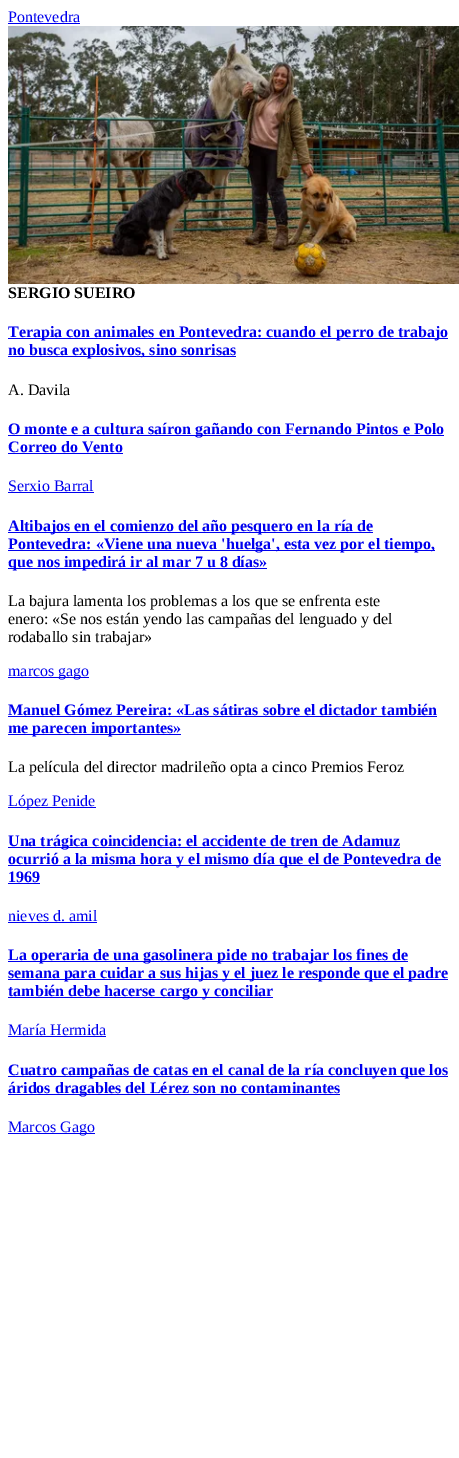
%!PS
<< /PageSize [459 1458] >> setpagedevice
/rgb { 3 { 255 div 3 1 roll } repeat setrgbcolor } def
/font { [ exch dup neg 0 0 3 -1 roll 0 0 ] selectfont } def
/text { moveto show } def
/picture { 5 dict begin { /h /w /y /x /name } { exch def } forall
  gsave x y translate w h scale
  w h 8 [w 0 0 h 0 0] name (r) file false 3 colorimage grestore end } def
0 1458 translate 1 -1 scale
4 setmiterlimit
255 255 255 rgb
0 0 459 1458 rectfill
0 0 238 rgb
8 23 72 1 rectfill
(img_01.rgb) 8 26 451 258 picture
8 338 440 1 rectfill
8 356 228 1 rectfill
8 435 436 1 rectfill
8 453 115 1 rectfill
8 492 86 1 rectfill
8 532 365 1 rectfill
8 550 427 1 rectfill
8 568 259 1 rectfill
8 677 81 1 rectfill
8 716 429 1 rectfill
8 734 173 1 rectfill
8 807 88 1 rectfill
8 847 392 1 rectfill
8 865 433 1 rectfill
8 883 32 1 rectfill
8 922 89 1 rectfill
8 961 400 1 rectfill
8 979 440 1 rectfill
8 997 265 1 rectfill
8 1036 98 1 rectfill
8 1076 440 1 rectfill
8 1094 332 1 rectfill
8 1133 87 1 rectfill
/LiberationSerif-Regular 16 font
(Pontevedra) 8 22 text
/LiberationSerif-Bold 16 font
0 0 0 rgb
(SERGIO SUEIRO) 8 298 text
0 0 238 rgb
(Terapia con animales en Pontevedra: cuando el perro de trabajo) 8 337 text
(no busca explosivos, sino sonrisas) 8 355 text
/LiberationSerif-Regular 16 font
0 0 0 rgb
(A. Davila) 8 395 text
/LiberationSerif-Bold 16 font
0 0 238 rgb
(O monte e a cultura saíron gañando con Fernando Pintos e Polo) 8 434 text
(Correo do Vento) 8 452 text
/LiberationSerif-Regular 16 font
(Serxio Barral) 8 491 text
/LiberationSerif-Bold 16 font
(Altibajos en el comienzo del año pesquero en la ría de) 8 531 text
(Pontevedra: «Viene una nueva 'huelga', esta vez por el tiempo,) 8 549 text
(que nos impedirá ir al mar 7 u 8 días») 8 567 text
/LiberationSerif-Regular 16 font
0 0 0 rgb
(La bajura lamenta los problemas a los que se enfrenta este) 8 606 text
(enero: «Se nos están yendo las campañas del lenguado y del) 8 624 text
(rodaballo sin trabajar») 8 642 text
0 0 238 rgb
(marcos gago) 8 676 text
/LiberationSerif-Bold 16 font
(Manuel Gómez Pereira: «Las sátiras sobre el dictador también) 8 715 text
(me parecen importantes») 8 733 text
/LiberationSerif-Regular 16 font
0 0 0 rgb
(La película del director madrileño opta a cinco Premios Feroz) 8 772 text
0 0 238 rgb
(López Penide) 8 806 text
/LiberationSerif-Bold 16 font
(Una trágica coincidencia: el accidente de tren de Adamuz) 8 846 text
(ocurrió a la misma hora y el mismo día que el de Pontevedra de) 8 864 text
(1969) 8 882 text
/LiberationSerif-Regular 16 font
(nieves d. amil) 8 921 text
/LiberationSerif-Bold 16 font
(La operaria de una gasolinera pide no trabajar los fines de) 8 960 text
(semana para cuidar a sus hijas y el juez le responde que el padre) 8 978 text
(también debe hacerse cargo y conciliar) 8 996 text
/LiberationSerif-Regular 16 font
(María Hermida) 8 1035 text
/LiberationSerif-Bold 16 font
(Cuatro campañas de catas en el canal de la ría concluyen que los) 8 1075 text
(áridos dragables del Lérez son no contaminantes) 8 1093 text
/LiberationSerif-Regular 16 font
(Marcos Gago) 8 1132 text
showpage
